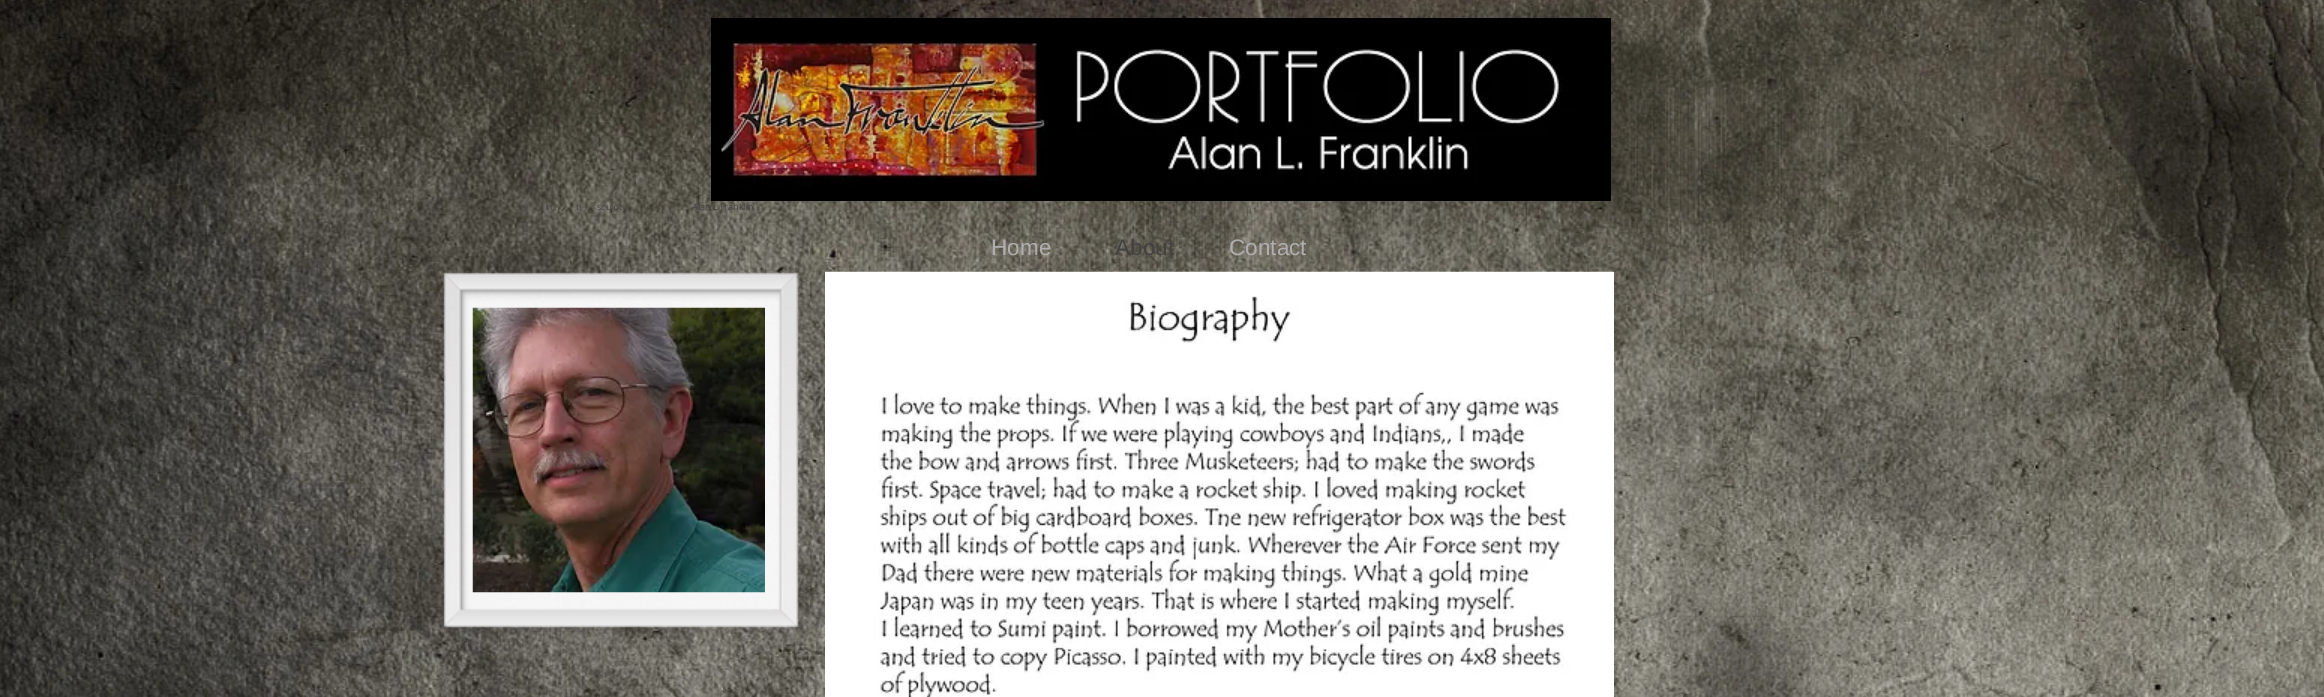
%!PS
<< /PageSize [2324 697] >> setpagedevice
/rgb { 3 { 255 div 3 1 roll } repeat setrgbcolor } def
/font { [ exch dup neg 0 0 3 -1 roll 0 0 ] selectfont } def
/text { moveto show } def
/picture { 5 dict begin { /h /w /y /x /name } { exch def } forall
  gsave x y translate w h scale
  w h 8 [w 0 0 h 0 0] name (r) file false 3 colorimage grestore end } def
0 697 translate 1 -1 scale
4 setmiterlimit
255 255 255 rgb
0 0 2324 697 rectfill
(img_01.rgb) 0 0 2324 697 picture
(img_02.rgb) 711 18 900 183 picture
(img_03.rgb) 443 272 360 362 picture
(img_04.rgb) 825 271 789 426 picture
(img_05.rgb) 472 307 293 286 picture
/OpenSans-Regular 9 font
65 65 65 rgb
(i) 526 210 text
(rt,) 546 210 text
(ti) 576 210 text
(sculpt) 597 210 text
(Alan L Franklin) 692 210 text
/LiberationSans-Regular 22.5 font
175 175 175 rgb
(Home) 991 255 text
65 65 65 rgb
(About) 1115 255 text
175 175 175 rgb
(Contact) 1229 255 text
showpage
